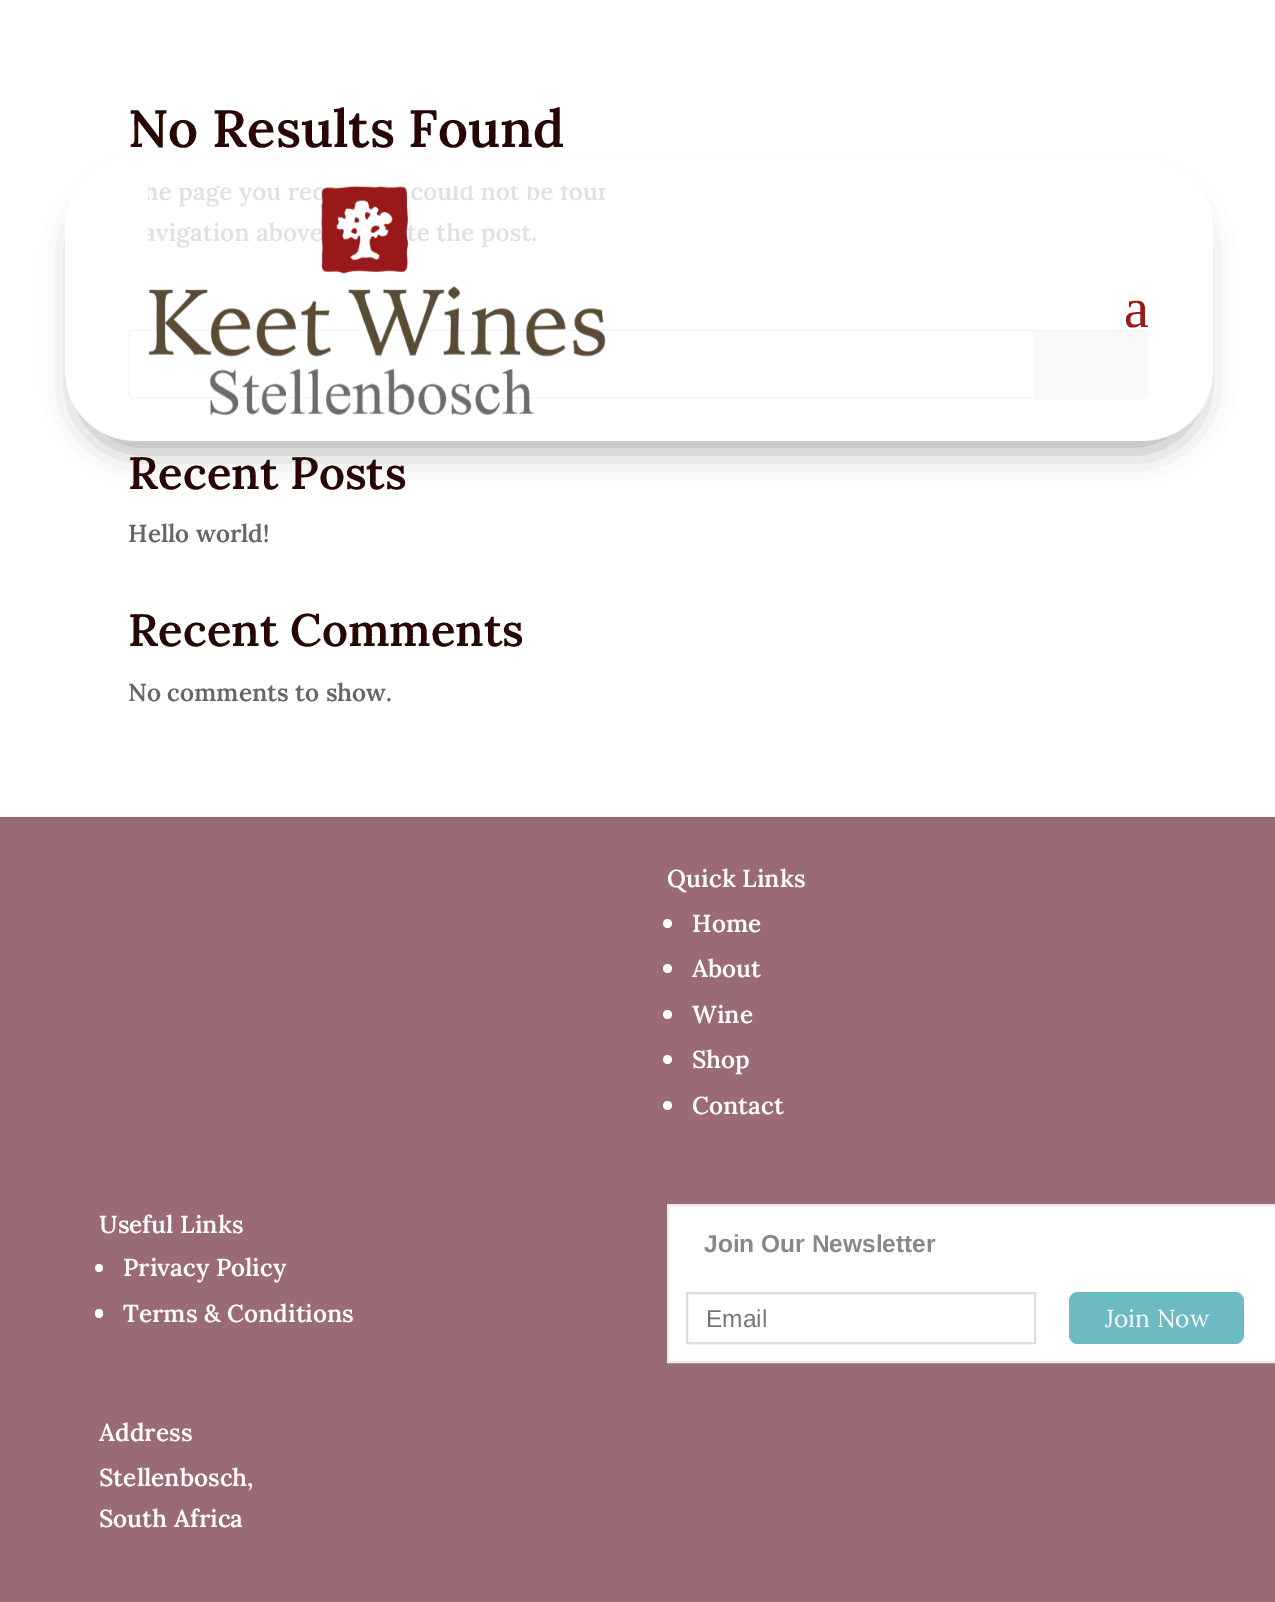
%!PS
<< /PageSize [1275 1602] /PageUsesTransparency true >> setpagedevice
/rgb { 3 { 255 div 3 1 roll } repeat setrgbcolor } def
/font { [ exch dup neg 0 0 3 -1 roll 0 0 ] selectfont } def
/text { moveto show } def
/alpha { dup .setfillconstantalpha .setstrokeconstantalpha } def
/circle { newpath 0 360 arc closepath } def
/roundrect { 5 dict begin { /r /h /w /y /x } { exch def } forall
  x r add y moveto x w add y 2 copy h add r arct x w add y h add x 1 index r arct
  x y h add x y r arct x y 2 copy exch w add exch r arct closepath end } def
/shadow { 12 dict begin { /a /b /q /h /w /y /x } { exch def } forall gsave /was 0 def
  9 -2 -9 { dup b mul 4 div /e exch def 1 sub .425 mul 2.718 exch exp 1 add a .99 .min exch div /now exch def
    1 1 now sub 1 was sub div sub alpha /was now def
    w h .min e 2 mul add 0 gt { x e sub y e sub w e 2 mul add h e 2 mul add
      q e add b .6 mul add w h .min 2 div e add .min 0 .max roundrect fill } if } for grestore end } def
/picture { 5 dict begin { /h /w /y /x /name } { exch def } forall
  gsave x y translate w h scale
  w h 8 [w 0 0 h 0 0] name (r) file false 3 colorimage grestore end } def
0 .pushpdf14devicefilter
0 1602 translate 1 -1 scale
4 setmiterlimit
255 255 255 rgb
0 0 1275 1602 rectfill
221 221 221 rgb
2 setlinewidth
129 330 1018 68 4 roundrect stroke
1034 330 moveto 109 0 rlineto 2 0 4 2 4 4 rcurveto 0 60 rlineto 0 2 -2 4 -4 4 rcurveto -109 0 rlineto closepath gsave fill grestore
stroke
155 107 117 rgb
0 817 1275 785 rectfill
255 255 255 rgb
667.5 923.5 4.5 circle fill
667.5 968.5 4.5 circle fill
667.5 1014.5 4.5 circle fill
667.5 1059.5 4.5 circle fill
667.5 1105.5 4.5 circle fill
99 1268 4 circle fill
95 1309 8 9 4 roundrect fill
668 1205 moveto 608 0 rlineto 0 157 rlineto -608 0 rlineto closepath gsave fill grestore
235 235 235 rgb
stroke
221 221 221 rgb
687 1293 348 50 rectstroke
108 187 195 rgb
1069 1292 175 52 9 roundrect fill
gsave
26 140 moveto 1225 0 rlineto 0 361 rlineto -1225 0 rlineto closepath 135 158 moveto 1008 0 rlineto 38.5 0 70 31.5 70 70 rcurveto 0 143 rlineto 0 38.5 -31.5 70 -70 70 rcurveto -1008 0 rlineto -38.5 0 -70 -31.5 -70 -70 rcurveto 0 -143 rlineto 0 -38.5 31.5 -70 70 -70 rcurveto closepath eoclip newpath
0 0 0 rgb
75 189 1127 263 60 16 0.3 shadow
grestore
0.8 alpha
255 255 255 rgb
65 158 1148 283 70 roundrect fill
1 alpha
(img_01.rgb) 148 186 458 230 picture
/Lora-SemiBold 52.5 font
40 7 3 rgb
(No Results Found) 128 147 text
/Lora-SemiBold 45.5 font
(Recent Posts) 128 489 text
/Lora-SemiBold 24.5 font
102 102 102 rgb
(Hello world!) 128 542 text
/Lora-SemiBold 45.5 font
40 7 3 rgb
(Recent Comments) 128 646 text
/Lora-SemiBold 24.5 font
102 102 102 rgb
(No comments to show.) 128 701 text
255 255 255 rgb
(Quick Links) 667 887 text
(Home) 692 932 text
(About) 692 977 text
(Wine) 692 1023 text
(Shop) 692 1068 text
(Contact) 692 1114 text
(Useful Links) 99 1233 text
(Privacy Policy) 123 1276 text
(Terms & Conditions) 123 1322 text
(Address) 99 1441 text
(Stellenbosch,) 99 1486 text
(South Africa) 99 1527 text
/LiberationSans-Bold 24.5 font
136 136 136 rgb
(Join Our Newsletter) 704 1252 text
/LiberationSans-Regular 24.5 font
117 117 117 rgb
(Email) 706 1327 text
/Lora-Regular 24.5 font
255 255 255 rgb
(Join Now) 1105 1327 text
/LiberationSerif-Regular 56 font
153 26 25 rgb
(a) 1124 327 text
.poppdf14devicefilter showpage
